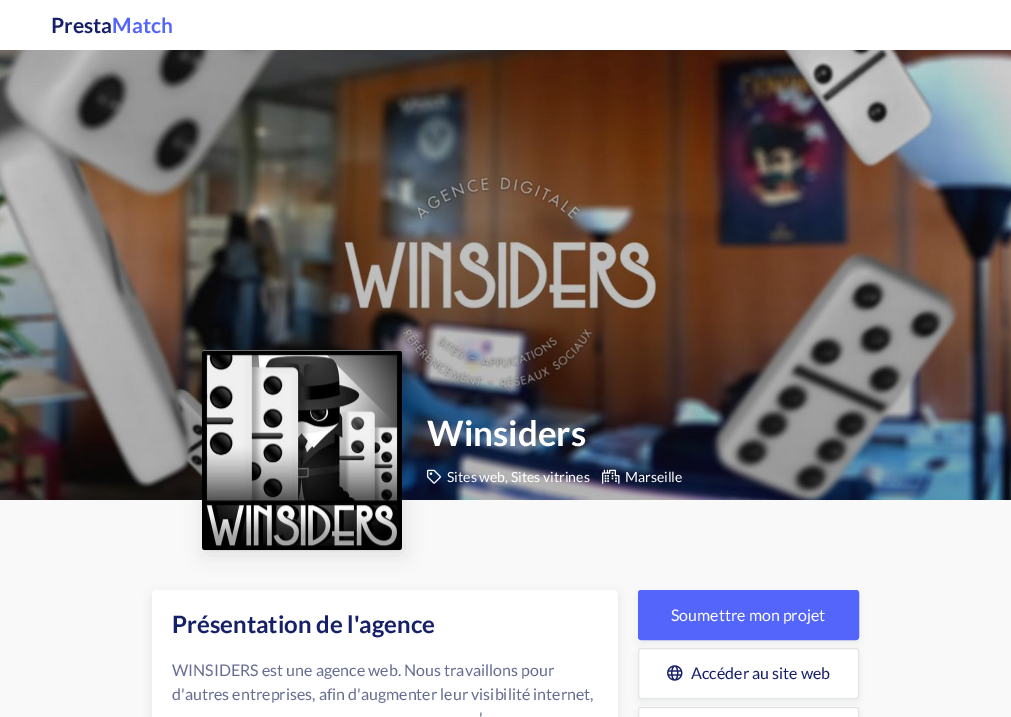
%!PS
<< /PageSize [1011 717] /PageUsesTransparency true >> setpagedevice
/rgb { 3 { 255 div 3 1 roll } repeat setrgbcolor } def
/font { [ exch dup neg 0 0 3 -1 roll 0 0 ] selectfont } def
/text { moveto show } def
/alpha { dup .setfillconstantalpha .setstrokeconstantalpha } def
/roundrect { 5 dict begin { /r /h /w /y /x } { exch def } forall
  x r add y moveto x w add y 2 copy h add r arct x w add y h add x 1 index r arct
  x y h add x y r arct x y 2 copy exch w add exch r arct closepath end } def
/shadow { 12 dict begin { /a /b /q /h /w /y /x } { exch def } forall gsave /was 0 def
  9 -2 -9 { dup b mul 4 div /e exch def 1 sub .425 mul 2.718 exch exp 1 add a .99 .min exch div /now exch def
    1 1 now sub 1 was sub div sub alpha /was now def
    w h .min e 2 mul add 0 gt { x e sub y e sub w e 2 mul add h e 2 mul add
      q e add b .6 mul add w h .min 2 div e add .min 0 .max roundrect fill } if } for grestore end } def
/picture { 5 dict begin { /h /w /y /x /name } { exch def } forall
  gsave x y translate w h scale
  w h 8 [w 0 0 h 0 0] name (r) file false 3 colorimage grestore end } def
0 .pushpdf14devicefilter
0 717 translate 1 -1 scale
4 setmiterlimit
249 249 249 rgb
0 0 1011 717 rectfill
255 255 255 rgb
0 0 1011 50 rectfill
(img_01.rgb) 0 50 1011 450 picture
0 0 0 rgb
204 355 200 200 3 10 0.1 shadow
255 255 255 rgb
202 350 200 200 3 roundrect fill
(img_02.rgb) 202 350 200 201 picture
(img_03.rgb) 427 469 14 15 picture
(img_04.rgb) 602 469 18 15 picture
0 0 0 rgb
152 593 466 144 5 5 0.08 shadow
255 255 255 rgb
152 590 466 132 5 roundrect fill
15 41 48 rgb
638 594 221 50 3 4 0.05 shadow
84 101 252 rgb
638.5 590.5 220 49 2.5 roundrect gsave fill grestore
stroke
15 41 48 rgb
638 652 221 51 3 4 0.05 shadow
255 255 255 rgb
638.5 648.5 220 50 2.5 roundrect gsave fill grestore
228 228 228 rgb
stroke
(img_05.rgb) 667 665 16 16 picture
15 41 48 rgb
638 711 221 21 3 4 0.05 shadow
255 255 255 rgb
638.5 707.5 220 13 2.5 roundrect gsave fill grestore
228 228 228 rgb
stroke
/Lato-Bold 21 font
22 31 106 rgb
(Presta) 51 33 text
84 101 252 rgb
(Match) 112 33 text
/Lato-Bold 35 font
255 255 255 rgb
(Winsiders) 427 446 text
/Lato-Regular 14 font
(Sites web, Sites vitrines) 447 482 text
(Marseille) 625 482 text
/Lato-Bold 24 font
22 31 106 rgb
(Présentation de l'agence) 172 633 text
/Lato-Regular 16 font
102 109 146 rgb
(WINSIDERS est une agence web. Nous travaillons pour) 172 676 text
(d'autres entreprises, afin d'augmenter leur visibilité internet,) 172 700 text
(') 479 724 text
255 255 255 rgb
(Soumettre mon projet) 671 621 text
22 31 106 rgb
(Accéder au site web) 691 679 text
.poppdf14devicefilter showpage
